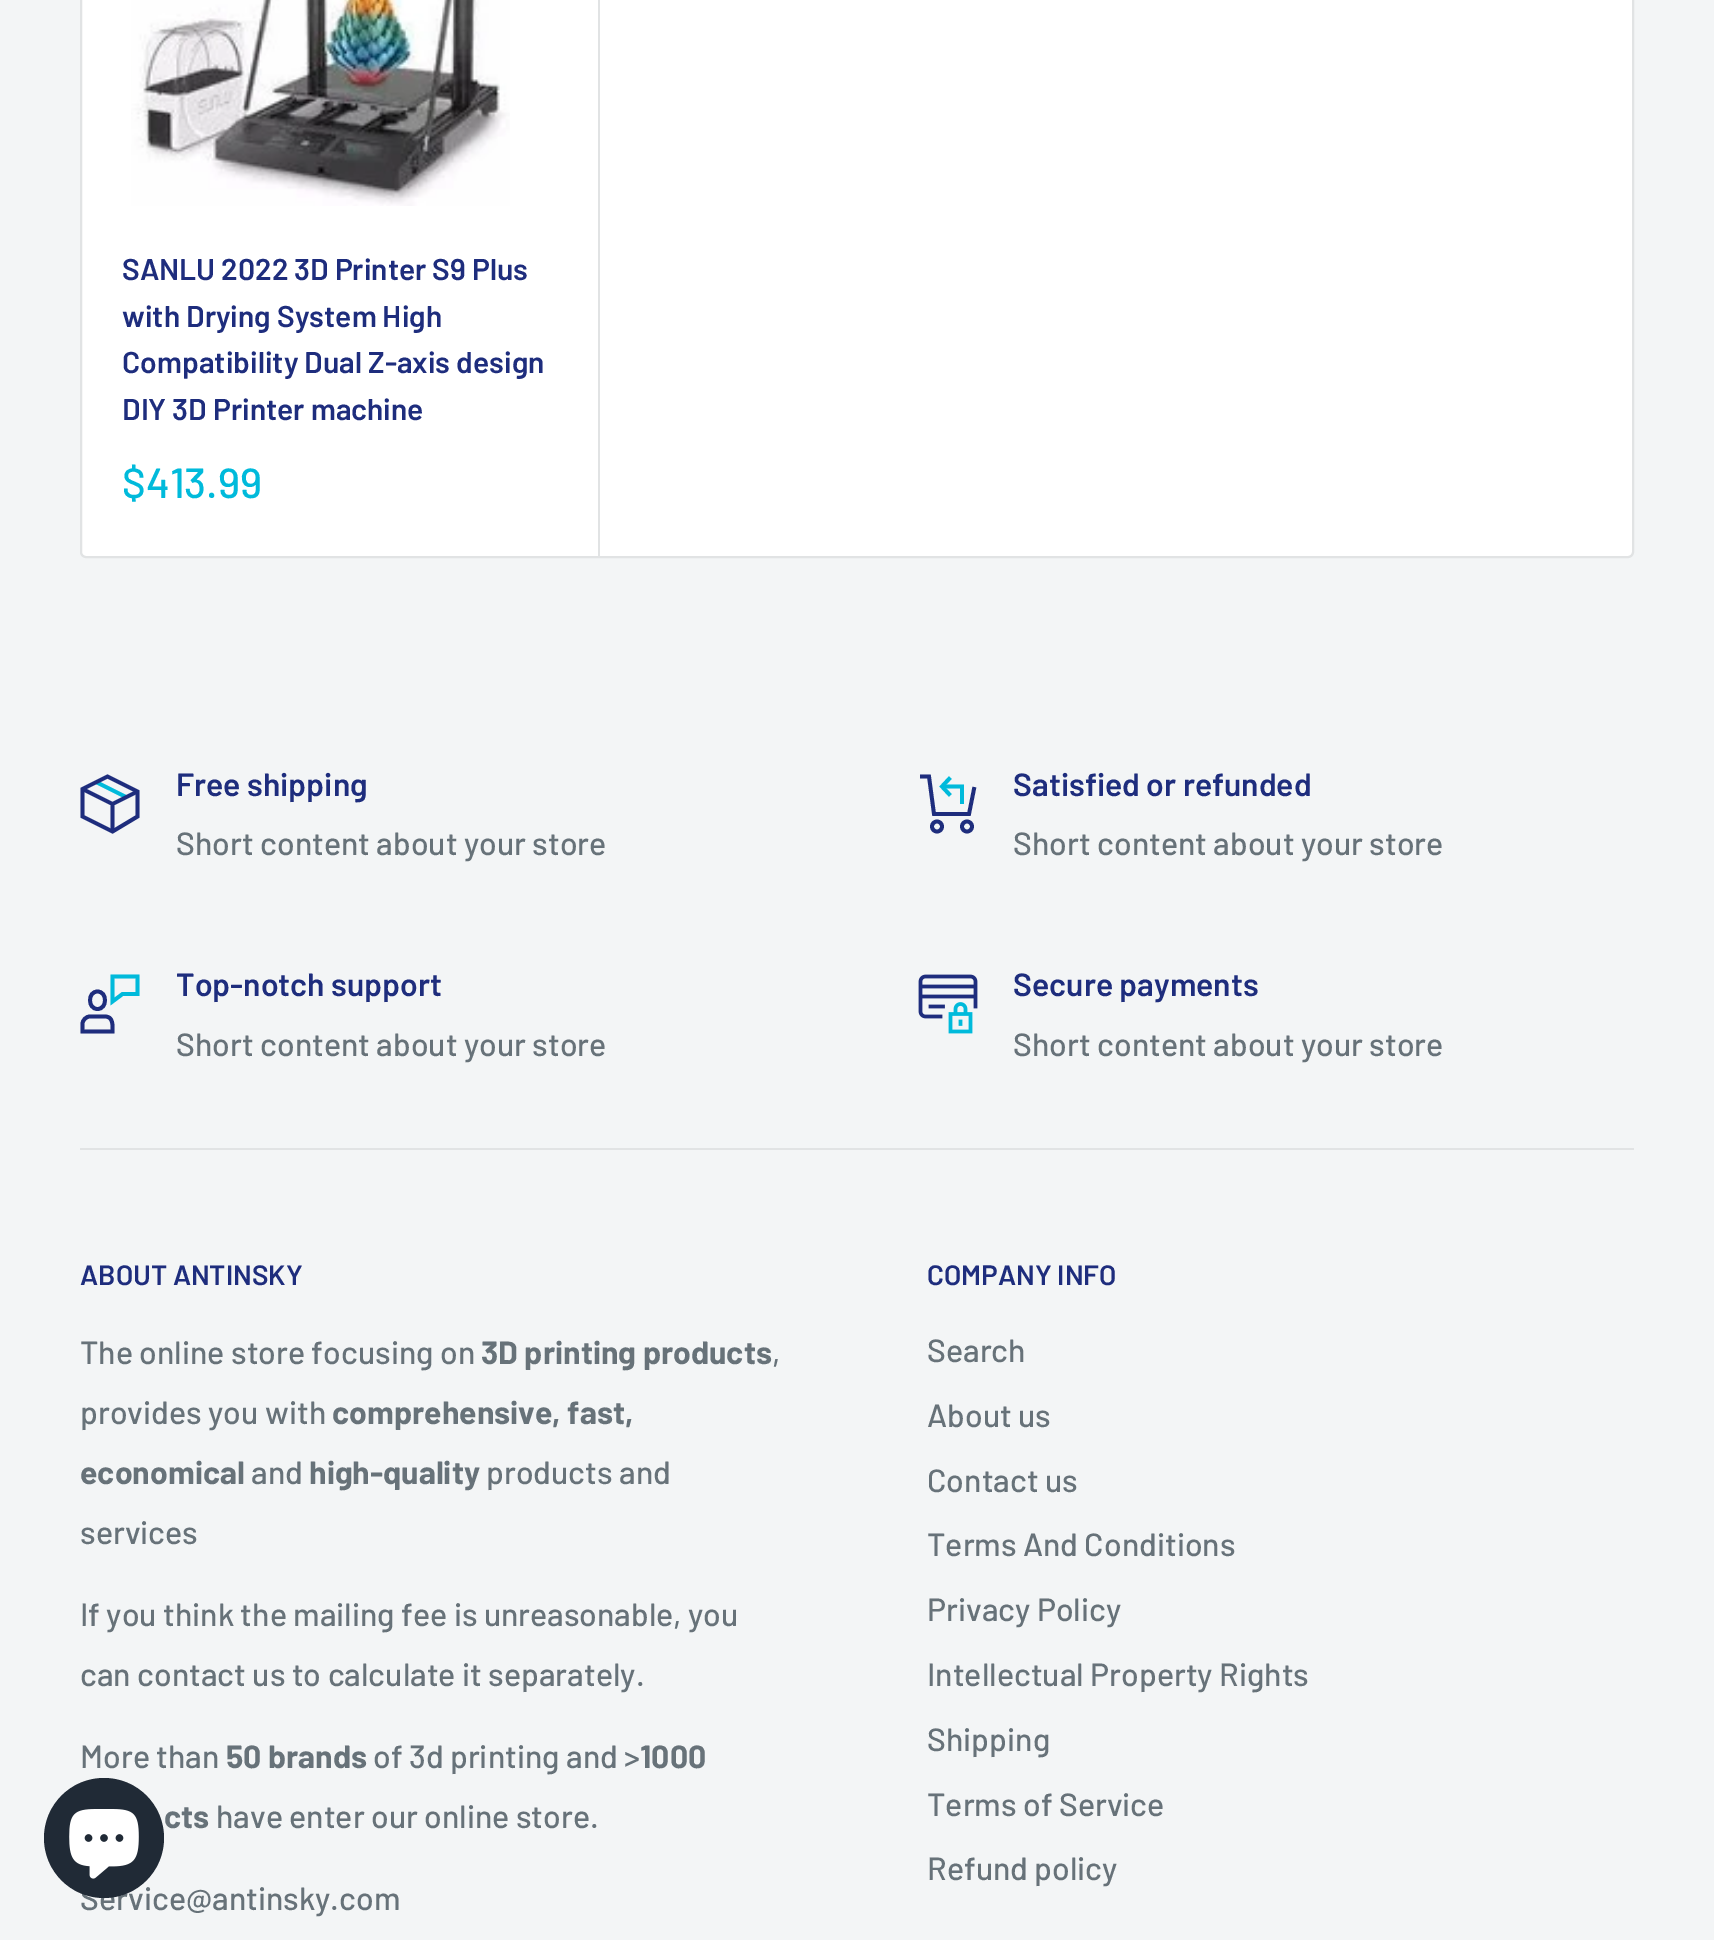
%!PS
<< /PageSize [1714 1940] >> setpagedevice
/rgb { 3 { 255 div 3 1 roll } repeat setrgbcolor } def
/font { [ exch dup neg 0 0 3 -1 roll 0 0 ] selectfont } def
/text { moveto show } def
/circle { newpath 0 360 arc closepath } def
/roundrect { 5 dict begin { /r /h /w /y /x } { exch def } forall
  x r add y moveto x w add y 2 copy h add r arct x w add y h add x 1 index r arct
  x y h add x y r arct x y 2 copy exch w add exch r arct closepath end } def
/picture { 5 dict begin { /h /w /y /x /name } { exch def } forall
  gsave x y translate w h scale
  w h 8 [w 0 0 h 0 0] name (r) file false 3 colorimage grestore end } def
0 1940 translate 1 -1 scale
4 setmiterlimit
243 245 246 rgb
0 0 1714 1940 rectfill
255 255 255 rgb
81 -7 1552 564 5 roundrect gsave fill grestore
225 227 228 rgb
2 setlinewidth
stroke
(img_01.rgb) 131 0 379 206 picture
598 0 2 556 rectfill
0 186 219 rgb
3.8 setlinewidth
96 782 moveto 30 15 rlineto stroke
30 45 125 rgb
137.5 791.5 moveto -25 12.5 rlineto -30 -15 rlineto 112.5 804 moveto 0 27.5 rlineto stroke
2 setlinecap
137.5 791.5 moveto 0 25 rlineto -25 15 rlineto -30 -15 rlineto 0 -27.5 rlineto 25 -12.5 rlineto closepath stroke
0 186 219 rgb
0 setlinecap
942 786.5 moveto 20 0 rlineto 0 17.5 rlineto stroke
2 setlinecap
949 794 moveto -7 -7.5 rlineto 7 -7.5 rlineto stroke
30 45 125 rgb
974 789 moveto -5 25 rlineto -35 0 rlineto -5 -37.5 rlineto -7 0 rlineto stroke
0 setlinecap
937 826.5 5 circle stroke
967 826.5 5 circle stroke
2 setlinecap
105 1016.5 moveto -15 0 rlineto -4 0 -7.5 3.5 -7.5 7.5 rcurveto 0 7.5 rlineto 30 0 rlineto 0 -6 1 -15 -7.5 -15 rcurveto closepath 97.5 1009 moveto -10 0 -10 -17.5 0 -17.5 rcurveto 10 0 10 17.5 0 17.5 rcurveto closepath stroke
0 186 219 rgb
112.5 976.5 moveto 0 25 rlineto 10 -7.5 rlineto 15 0 rlineto 0 -17.5 rlineto closepath stroke
(img_02.rgb) 918 974 60 60 picture
225 227 228 rgb
80 1148 1554 2 rectfill
/Barlow-SemiBold 30 font
30 45 125 rgb
(SANLU 2022 3D Printer S9 Plus) 122 280 text
(with Drying System High) 122 327 text
(Compatibility Dual Z-axis design) 122 373 text
(DIY 3D Printer machine) 122 420 text
/Barlow-Medium 42 font
0 186 219 rgb
($413.99) 122 498 text
/Barlow-SemiBold 32 font
30 45 125 rgb
(Free shipping) 176 796 text
/Barlow-Medium 32 font
103 114 121 rgb
(Short content about your store) 176 855 text
/Barlow-SemiBold 32 font
30 45 125 rgb
(Satisfied or refunded) 1013 796 text
/Barlow-Medium 32 font
103 114 121 rgb
(Short content about your store) 1013 855 text
/Barlow-SemiBold 32 font
30 45 125 rgb
(Top-notch support) 176 996 text
/Barlow-Medium 32 font
103 114 121 rgb
(Short content about your store) 176 1056 text
/Barlow-SemiBold 32 font
30 45 125 rgb
(Secure payments) 1013 996 text
/Barlow-Medium 32 font
103 114 121 rgb
(Short content about your store) 1013 1056 text
/Barlow-SemiBold 28 font
30 45 125 rgb
(ABOUT ANTINSKY) 80 1285 text
/Barlow-Medium 32 font
103 114 121 rgb
(The online store focusing on) 80 1364 text
/Barlow-Bold 32 font
(3D printing products) 481 1364 text
/Barlow-Medium 32 font
(,) 772 1364 text
(provides you with) 80 1424 text
/Barlow-Bold 32 font
(comprehensive, fast,) 332 1424 text
(economical) 80 1484 text
/Barlow-Medium 32 font
(and) 251 1484 text
/Barlow-Bold 32 font
(high-quality) 309 1484 text
/Barlow-Medium 32 font
(products and) 486 1484 text
(services) 80 1544 text
(If you think the mailing fee is unreasonable, you) 80 1626 text
(can contact us to calculate it separately.) 80 1686 text
(More than) 80 1768 text
/Barlow-Bold 32 font
(50 brands) 226 1768 text
/Barlow-Medium 32 font
(of 3d printing and >) 373 1768 text
/Barlow-Bold 32 font
(1000) 640 1768 text
(cts) 164 1828 text
/Barlow-Medium 32 font
(have enter our online store.) 216 1828 text
(Service@antinsky.com) 80 1910 text
/Barlow-SemiBold 28 font
30 45 125 rgb
(COMPANY INFO) 927 1285 text
/Barlow-Medium 32 font
103 114 121 rgb
(Search) 927 1362 text
(About us) 927 1427 text
(Contact us) 927 1492 text
(Terms And Conditions) 927 1556 text
(Privacy Policy) 927 1621 text
(Intellectual Property Rights) 927 1686 text
(Shipping) 927 1751 text
(Terms of Service) 927 1816 text
(Refund policy) 927 1880 text
32 42 54 rgb
104 1838 60 circle fill
(img_03.rgb) 69 1809 70 70 picture
showpage
